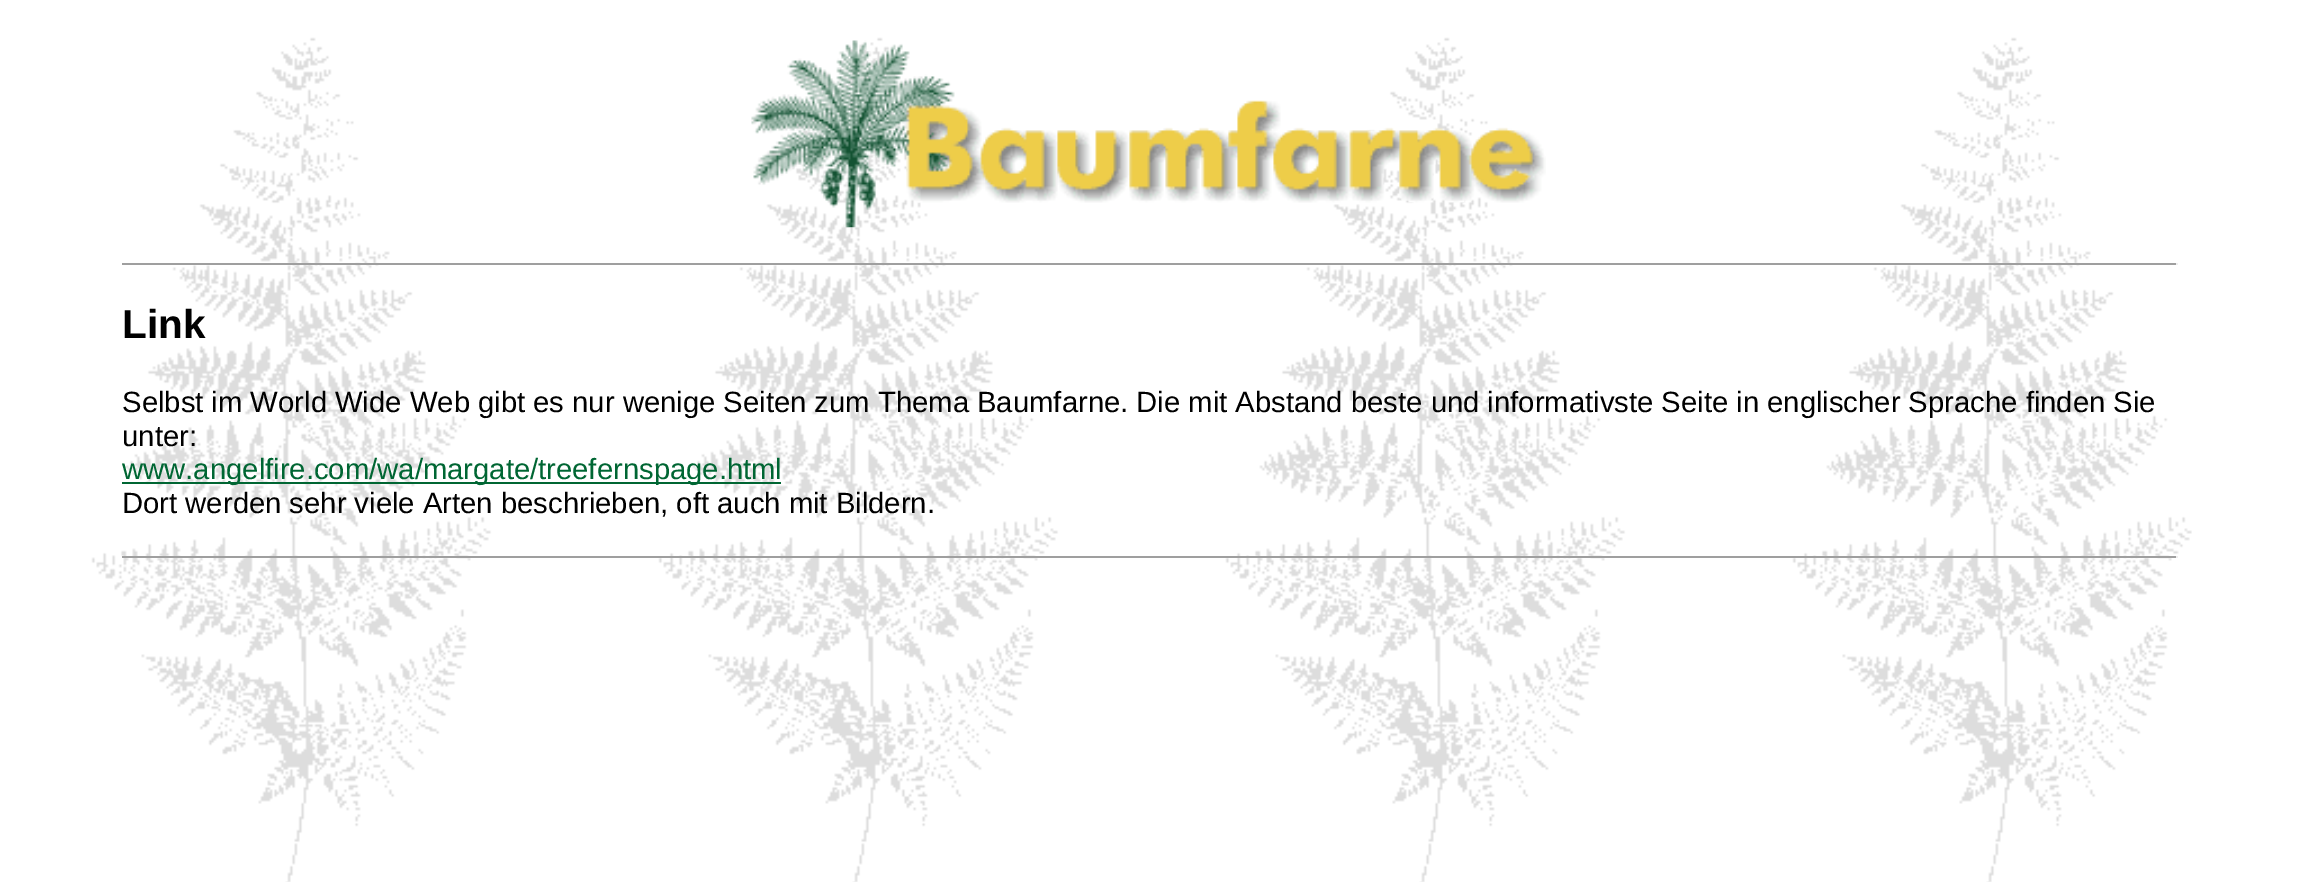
%!PS
<< /PageSize [2298 882] >> setpagedevice
/rgb { 3 { 255 div 3 1 roll } repeat setrgbcolor } def
/font { [ exch dup neg 0 0 3 -1 roll 0 0 ] selectfont } def
/text { moveto show } def
/picture { 5 dict begin { /h /w /y /x /name } { exch def } forall
  gsave x y translate w h scale
  w h 8 [w 0 0 h 0 0] name (r) file false 3 colorimage grestore end } def
0 882 translate 1 -1 scale
4 setmiterlimit
255 255 255 rgb
0 0 2298 882 rectfill
(img_01.rgb) 91 37 2101 845 picture
(img_02.rgb) 751 40 795 188 picture
159 159 159 rgb
122 263 2056 2 rectfill
238 238 238 rgb
2176 263 2 2 rectfill
0 102 51 rgb
122 482 659 2 rectfill
159 159 159 rgb
122 556 2056 2 rectfill
238 238 238 rgb
2176 556 2 2 rectfill
/LiberationSans-Bold 40.5 font
0 0 0 rgb
(Link) 122 338 text
/LiberationSans-Regular 29.25 font
(Selbst im World Wide Web gibt es nur wenige Seiten zum Thema Baumfarne. Die mit Abstand beste und informativste Seite in englischer Sprache finden Sie) 122 412 text
(unter:) 122 446 text
0 102 51 rgb
(www.angelfire.com/wa/margate/treefernspage.html) 122 479 text
0 0 0 rgb
(Dort werden sehr viele Arten beschrieben, oft auch mit Bildern.) 122 513 text
showpage
